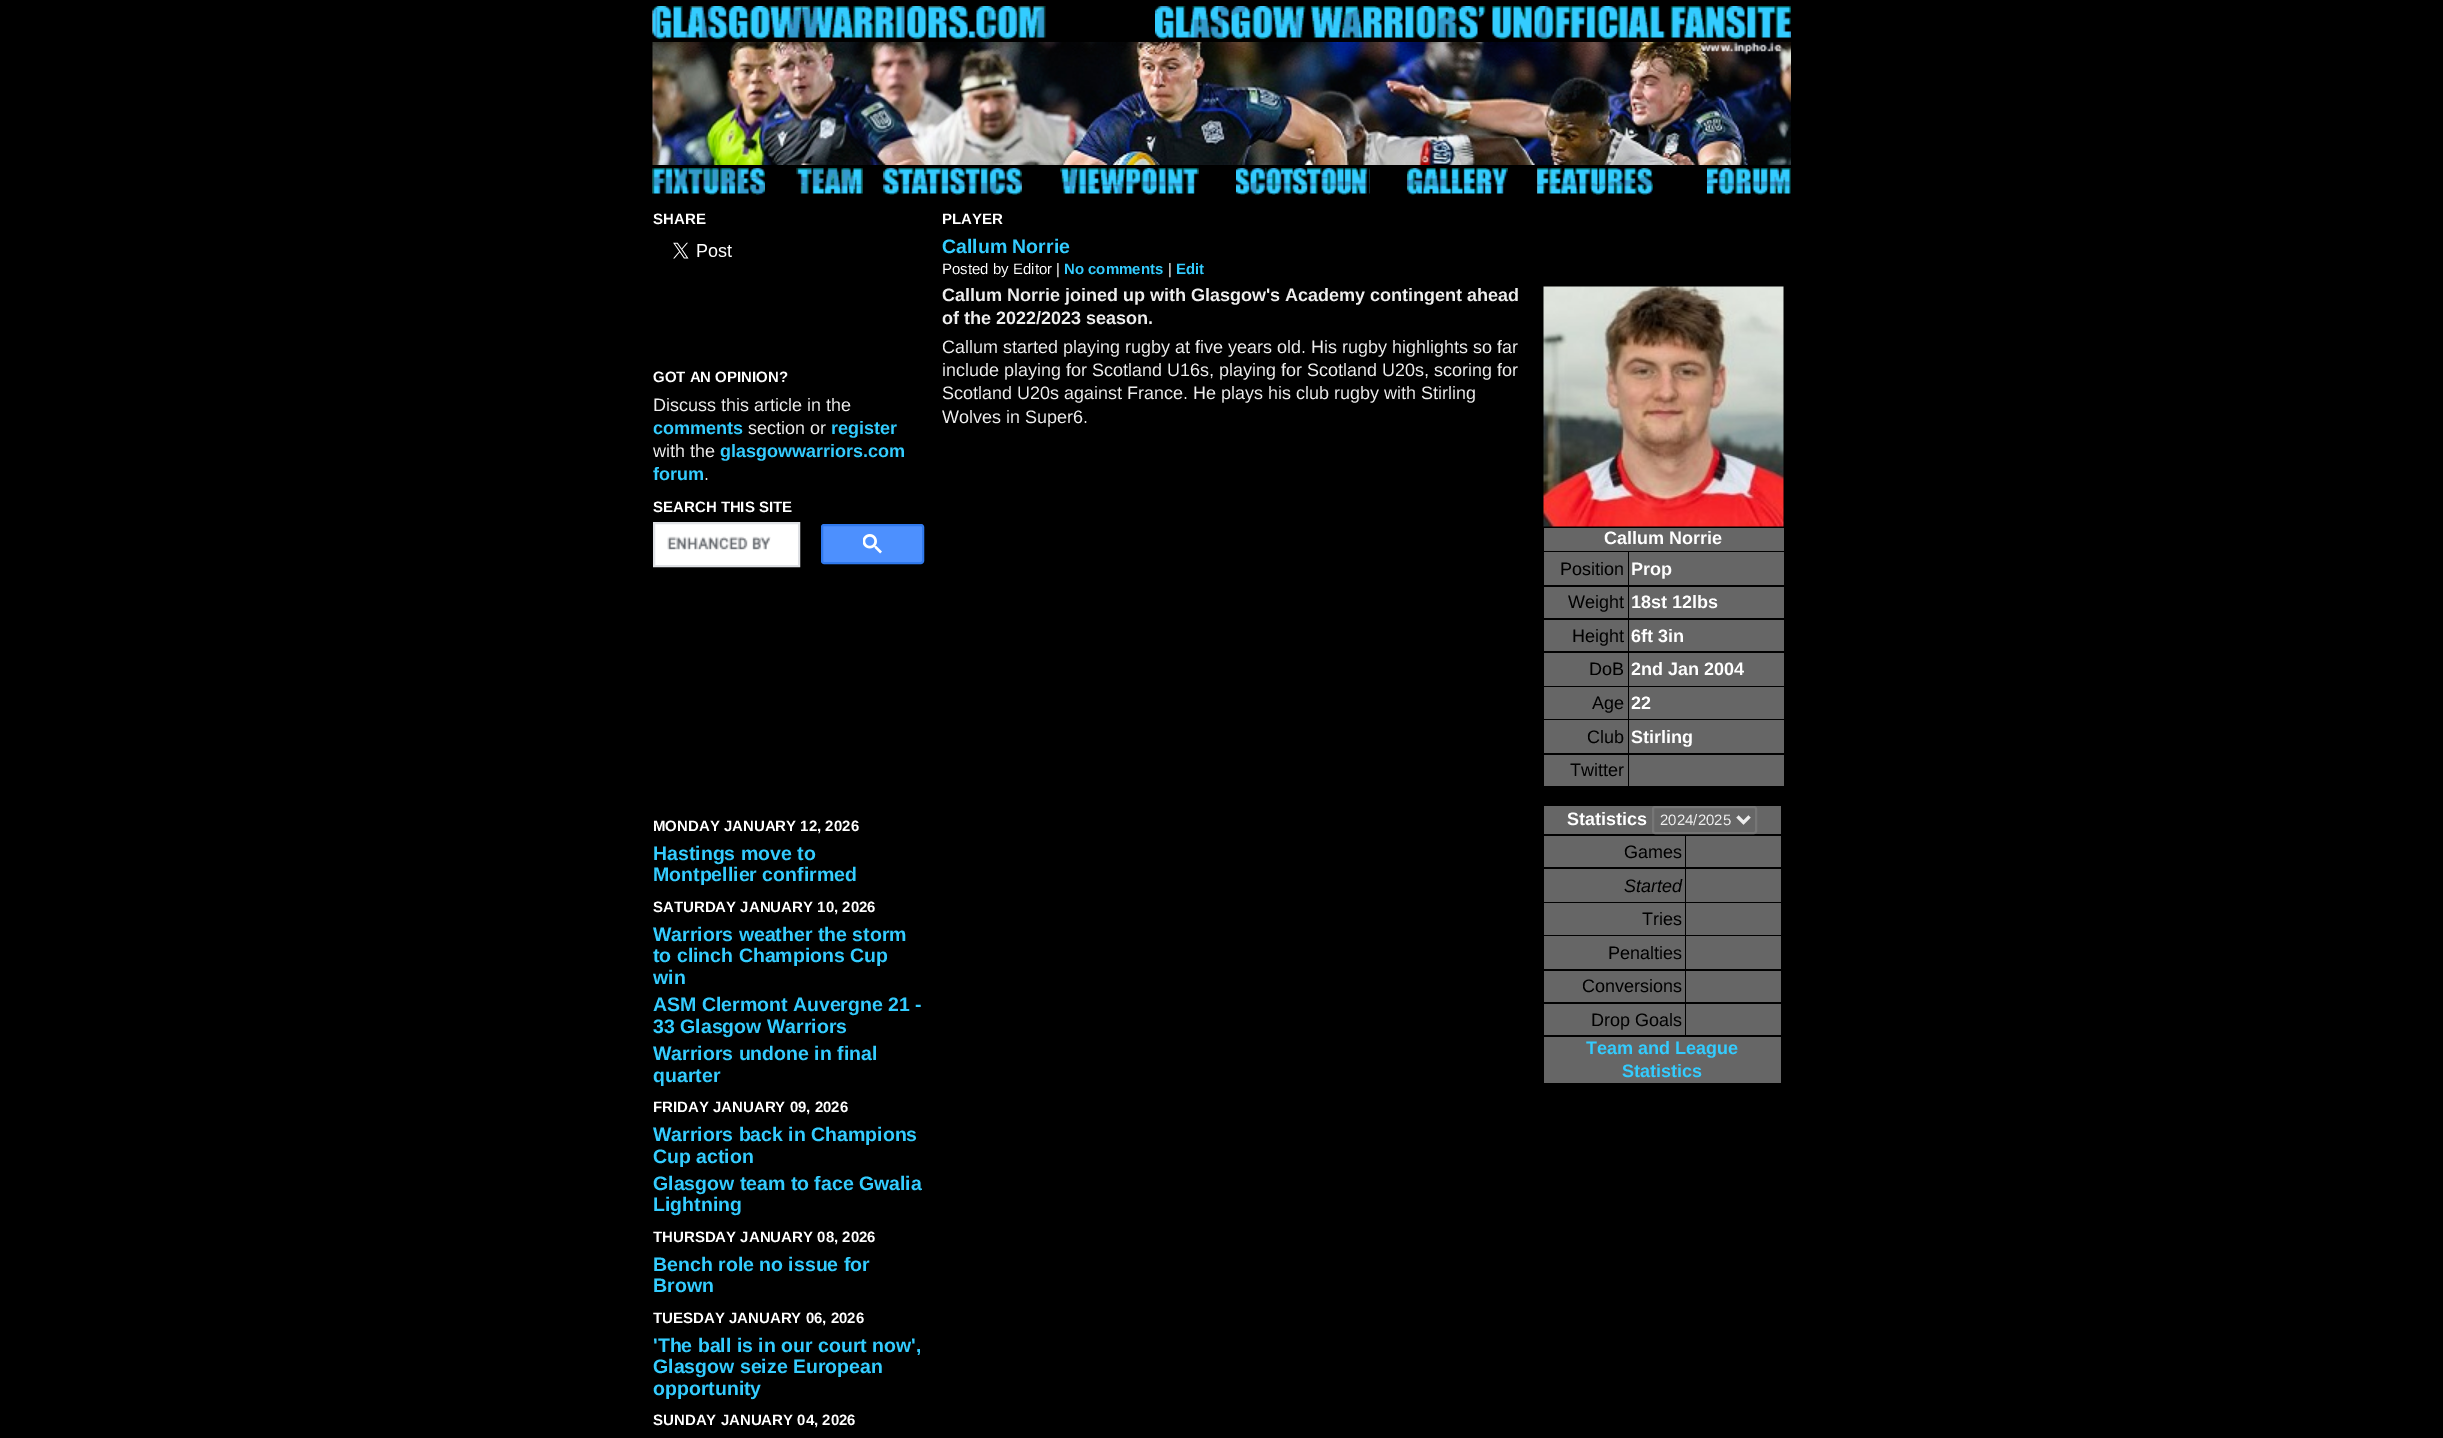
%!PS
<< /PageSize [2443 1438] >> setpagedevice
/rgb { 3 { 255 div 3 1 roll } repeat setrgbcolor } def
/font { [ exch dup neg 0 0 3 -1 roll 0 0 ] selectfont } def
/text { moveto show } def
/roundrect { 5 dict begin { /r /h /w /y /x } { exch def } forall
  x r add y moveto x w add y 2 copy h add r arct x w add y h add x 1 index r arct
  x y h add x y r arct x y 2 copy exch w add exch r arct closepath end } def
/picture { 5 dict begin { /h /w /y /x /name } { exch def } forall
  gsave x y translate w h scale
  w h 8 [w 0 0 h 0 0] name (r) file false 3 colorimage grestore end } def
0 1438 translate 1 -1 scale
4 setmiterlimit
0 0 0 rgb
0 0 2443 1438 rectfill
(img_01.rgb) 652 6 394 33 picture
(img_02.rgb) 652 6 394 33 picture
(img_03.rgb) 1155 6 636 33 picture
(img_04.rgb) 652 42 1139 123 picture
(img_05.rgb) 652 168 1 27 picture
(img_06.rgb) 652 168 113 27 picture
(img_07.rgb) 796 168 67 26 picture
(img_08.rgb) 796 168 67 26 picture
(img_09.rgb) 883 168 139 27 picture
(img_10.rgb) 883 168 139 27 picture
(img_11.rgb) 1060 168 139 27 picture
(img_12.rgb) 1060 168 139 27 picture
(img_13.rgb) 1236 168 134 27 picture
(img_14.rgb) 1237 168 133 27 picture
(img_15.rgb) 1507 168 1 27 picture
(img_16.rgb) 1407 168 101 27 picture
(img_17.rgb) 1537 168 1 27 picture
(img_18.rgb) 1537 168 116 27 picture
(img_19.rgb) 1707 168 84 27 picture
(img_20.rgb) 673 242 59 17 picture
255 255 255 rgb
654 523 moveto 145 0 rlineto 0 43 rlineto -145 0 rlineto closepath gsave fill grestore
223 225 229 rgb
2 setlinewidth
stroke
(img_21.rgb) 667 536 104 14 picture
77 144 254 rgb
822 525 101 38 2 roundrect gsave fill grestore
48 121 237 rgb
stroke
(img_22.rgb) 863 534 19 20 picture
(img_23.rgb) 1543 286 241 241 picture
102 102 102 rgb
1544 528 240 23 rectfill
1544 552 84 33 rectfill
1629 552 155 33 rectfill
1544 587 84 31 rectfill
1629 587 155 31 rectfill
1544 620 84 31 rectfill
1629 620 155 31 rectfill
1544 653 84 33 rectfill
1629 653 155 33 rectfill
1544 687 84 32 rectfill
1629 687 155 32 rectfill
1544 720 84 33 rectfill
1629 720 155 33 rectfill
1544 755 84 31 rectfill
1629 755 155 31 rectfill
1544 806 237 28 rectfill
118 118 118 rgb
1653 807 103 26 2 roundrect stroke
238 238 238 rgb
3 setlinewidth
1737.5 816.5 moveto 6 6 rlineto 6 -6 rlineto stroke
102 102 102 rgb
1544 836 141 31 rectfill
1686 836 95 31 rectfill
1544 869 141 33 rectfill
1686 869 95 33 rectfill
1544 903 141 32 rectfill
1686 903 95 32 rectfill
1544 936 141 33 rectfill
1686 936 95 33 rectfill
1544 971 141 31 rectfill
1686 971 95 31 rectfill
1544 1004 141 31 rectfill
1686 1004 95 31 rectfill
1544 1037 237 46 rectfill
/LiberationSans-Bold 15 font
255 255 255 rgb
(SHARE) 653 224 text
(GOT AN OPINION?) 653 382 text
/LiberationSans-Regular 18 font
238 238 238 rgb
(Discuss this article in the) 653 411 text
/LiberationSans-Bold 18 font
51 204 255 rgb
(comments) 653 434 text
/LiberationSans-Regular 18 font
238 238 238 rgb
(section or) 748 434 text
/LiberationSans-Bold 18 font
51 204 255 rgb
(register) 831 434 text
/LiberationSans-Regular 18 font
238 238 238 rgb
(with the) 653 457 text
/LiberationSans-Bold 18 font
51 204 255 rgb
(glasgowwarriors.com) 720 457 text
(forum) 653 480 text
/LiberationSans-Regular 18 font
238 238 238 rgb
(.) 704 480 text
/LiberationSans-Bold 15 font
255 255 255 rgb
(SEARCH THIS SITE) 653 512 text
(MONDAY JANUARY 12, 2026) 653 831 text
/LiberationSans-Bold 19.5 font
51 204 255 rgb
(Hastings move to) 653 860 text
(Montpellier confirmed) 653 881 text
/LiberationSans-Bold 15 font
255 255 255 rgb
(SATURDAY JANUARY 10, 2026) 653 912 text
/LiberationSans-Bold 19.5 font
51 204 255 rgb
(Warriors weather the storm) 653 941 text
(to clinch Champions Cup) 653 962 text
(win) 653 984 text
(ASM Clermont Auvergne 21 -) 653 1011 text
(33 Glasgow Warriors) 653 1033 text
(Warriors undone in final) 653 1060 text
(quarter) 653 1082 text
/LiberationSans-Bold 15 font
255 255 255 rgb
(FRIDAY JANUARY 09, 2026) 653 1112 text
/LiberationSans-Bold 19.5 font
51 204 255 rgb
(Warriors back in Champions) 653 1141 text
(Cup action) 653 1163 text
(Glasgow team to face Gwalia) 653 1190 text
(Lightning) 653 1211 text
/LiberationSans-Bold 15 font
255 255 255 rgb
(THURSDAY JANUARY 08, 2026) 653 1242 text
/LiberationSans-Bold 19.5 font
51 204 255 rgb
(Bench role no issue for) 653 1271 text
(Brown) 653 1292 text
/LiberationSans-Bold 15 font
255 255 255 rgb
(TUESDAY JANUARY 06, 2026) 653 1323 text
/LiberationSans-Bold 19.5 font
51 204 255 rgb
('The ball is in our court now',) 653 1352 text
(Glasgow seize European) 653 1373 text
(opportunity) 653 1395 text
/LiberationSans-Bold 15 font
255 255 255 rgb
(SUNDAY JANUARY 04, 2026) 653 1425 text
(PLAYER) 942 224 text
/LiberationSans-Bold 19.5 font
51 204 255 rgb
(Callum Norrie) 942 253 text
/LiberationSans-Regular 15 font
255 255 255 rgb
(Posted by Editor |) 942 274 text
/LiberationSans-Bold 15 font
51 204 255 rgb
(No comments) 1064 274 text
/LiberationSans-Regular 15 font
255 255 255 rgb
(|) 1168 274 text
/LiberationSans-Bold 15 font
51 204 255 rgb
(Edit) 1176 274 text
/LiberationSans-Bold 18 font
238 238 238 rgb
(Callum Norrie joined up with Glasgow's Academy contingent ahead) 942 301 text
(of the 2022/2023 season.) 942 324 text
/LiberationSans-Regular 18 font
(Callum started playing rugby at five years old. His rugby highlights so far) 942 353 text
(include playing for Scotland U16s, playing for Scotland U20s, scoring for) 942 376 text
(Scotland U20s against France. He plays his club rugby with Stirling) 942 399 text
(Wolves in Super6.) 942 423 text
/LiberationSans-Bold 18 font
255 255 255 rgb
(Callum Norrie) 1604 544 text
/LiberationSans-Regular 18 font
0 0 0 rgb
(Position) 1560 575 text
/LiberationSans-Bold 18 font
255 255 255 rgb
(Prop) 1631 575 text
/LiberationSans-Regular 18 font
0 0 0 rgb
(Weight) 1568 608 text
/LiberationSans-Bold 18 font
255 255 255 rgb
(18st 12lbs) 1631 608 text
/LiberationSans-Regular 18 font
0 0 0 rgb
(Height) 1572 642 text
/LiberationSans-Bold 18 font
255 255 255 rgb
(6ft 3in) 1631 642 text
/LiberationSans-Regular 18 font
0 0 0 rgb
(DoB) 1589 675 text
/LiberationSans-Bold 18 font
255 255 255 rgb
(2nd Jan 2004) 1631 675 text
/LiberationSans-Regular 18 font
0 0 0 rgb
(Age) 1592 709 text
/LiberationSans-Bold 18 font
255 255 255 rgb
(22) 1631 709 text
/LiberationSans-Regular 18 font
0 0 0 rgb
(Club) 1587 743 text
/LiberationSans-Bold 18 font
255 255 255 rgb
(Stirling) 1631 743 text
/LiberationSans-Regular 18 font
0 0 0 rgb
(Twitter) 1570 776 text
/LiberationSans-Bold 18 font
255 255 255 rgb
(Statistics) 1567 825 text
/LiberationSans-Regular 15 font
238 238 238 rgb
(2024/2025) 1660 825 text
/LiberationSans-Regular 18 font
0 0 0 rgb
(Games) 1624 858 text
/LiberationSans-Italic 18 font
(Started) 1624 892 text
/LiberationSans-Regular 18 font
(Tries) 1642 925 text
(Penalties) 1608 959 text
(Conversions) 1582 992 text
(Drop Goals) 1591 1026 text
/LiberationSans-Bold 18 font
51 204 255 rgb
(Team and League) 1586 1054 text
(Statistics) 1622 1077 text
showpage
